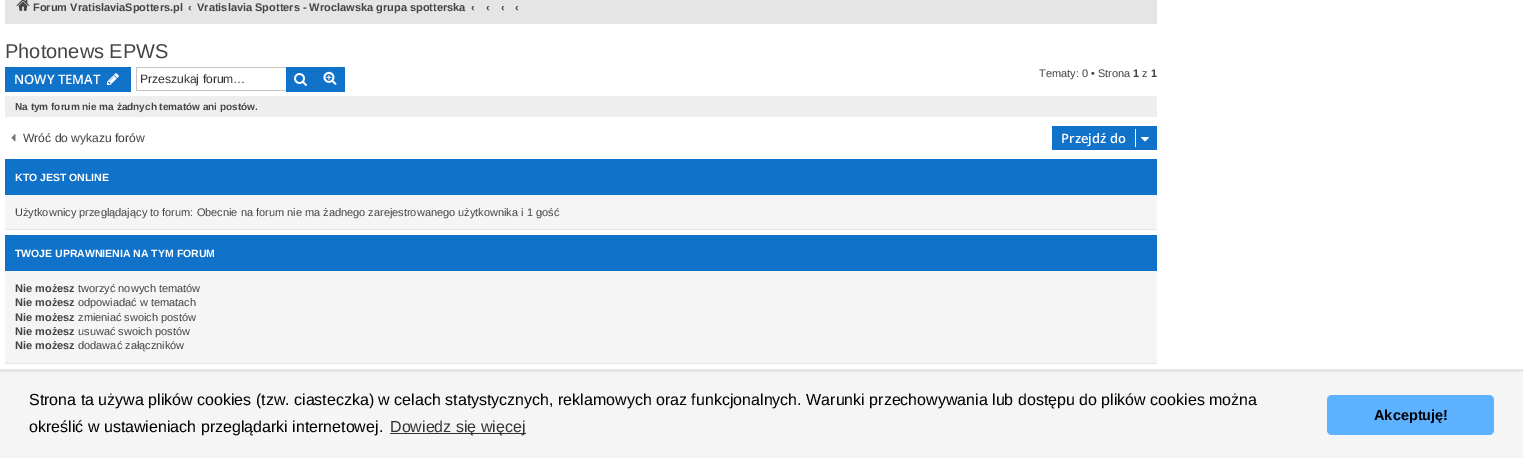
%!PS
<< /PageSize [1523 458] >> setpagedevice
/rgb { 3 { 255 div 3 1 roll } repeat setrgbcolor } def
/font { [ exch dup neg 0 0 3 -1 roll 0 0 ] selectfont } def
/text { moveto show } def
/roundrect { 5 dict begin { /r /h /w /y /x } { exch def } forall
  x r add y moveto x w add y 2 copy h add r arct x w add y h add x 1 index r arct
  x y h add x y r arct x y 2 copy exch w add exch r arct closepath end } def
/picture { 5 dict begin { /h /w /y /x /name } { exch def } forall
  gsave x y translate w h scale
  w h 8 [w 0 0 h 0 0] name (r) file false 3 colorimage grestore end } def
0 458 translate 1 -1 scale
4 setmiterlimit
255 255 255 rgb
0 0 1523 458 rectfill
229 229 229 rgb
5 0 1152 24 rectfill
(img_01.rgb) 16 0 14 11 picture
17 114 202 rgb
5 67 126 25 rectfill
(img_02.rgb) 107 73 12 12 picture
199 195 191 rgb
136 67 150 1 rectfill
136 90 150 1 rectfill
136 67 1 24 rectfill
17 114 202 rgb
286 67 30 25 rectfill
(img_03.rgb) 294 73 13 13 picture
316 68 28 23 rectfill
316 67 29 1 rectfill
344 67 1 25 rectfill
316 91 29 1 rectfill
(img_04.rgb) 323 71 14 14 picture
238 238 238 rgb
5 96 1152 21 rectfill
(img_05.rgb) 11 134 5 8 picture
17 114 202 rgb
1052 126 105 24 rectfill
255 255 255 rgb
1135 129 1 18 rectfill
(img_06.rgb) 1141 137 8 5 picture
17 114 202 rgb
5 159 1152 36 rectfill
245 245 245 rgb
5 195 1152 34 rectfill
229 229 229 rgb
5 229 1152 1 rectfill
17 114 202 rgb
5 235 1152 36 rectfill
245 245 245 rgb
5 271 1152 92 rectfill
229 229 229 rgb
5 363 1152 1 rectfill
0 369 1523 3 rectfill
245 245 245 rgb
0 372 1523 86 rectfill
49 49 49 rgb
390 433 136 1 rectfill
93 178 255 rgb
1327 395 167 40 5 roundrect fill
/LiberationSans-Bold 11 font
68 68 68 rgb
(Forum VratislaviaSpotters.pl) 33 11 text
(‹) 188 11 text
(Vratislavia Spotters - Wroclawska grupa spotterska) 197 11 text
(‹) 471 11 text
(‹) 486 11 text
(‹) 501 11 text
(‹) 515 11 text
/LiberationSans-Regular 20 font
(Photonews EPWS) 5 58 text
/OpenSans-SemiBold 13 font
255 255 255 rgb
(NOWY TEMAT) 14 84 text
/LiberationSans-Regular 12.1 font
51 51 51 rgb
(Przeszukaj forum…) 140 83 text
/LiberationSans-Regular 11 font
68 68 68 rgb
(Tematy: 0 • Strona) 1039 77 text
/LiberationSans-Bold 11 font
(1) 1133 77 text
/LiberationSans-Regular 11 font
(z) 1142 77 text
/LiberationSans-Bold 11 font
(1) 1151 77 text
/LiberationSans-Bold 10 font
(Na tym forum nie ma żadnych tematów ani postów.) 15 110 text
/LiberationSans-Regular 12.1 font
(Wróć do wykazu forów) 23 142 text
/OpenSans-SemiBold 13 font
255 255 255 rgb
(Przejdź do) 1061 143 text
/LiberationSans-Bold 10.5 font
(KTO JEST ONLINE) 15 181 text
/LiberationSans-Regular 11 font
68 68 68 rgb
(Użytkownicy przeglądający to forum: Obecnie na forum nie ma żadnego zarejestrowanego użytkownika i 1 gość) 15 216 text
/LiberationSans-Bold 10.5 font
255 255 255 rgb
(TWOJE UPRAWNIENIA NA TYM FORUM) 15 257 text
/LiberationSans-Bold 11 font
68 68 68 rgb
(Nie możesz) 15 292 text
/LiberationSans-Regular 11 font
(tworzyć nowych tematów) 78 292 text
/LiberationSans-Bold 11 font
(Nie możesz) 15 306 text
/LiberationSans-Regular 11 font
(odpowiadać w tematach) 78 306 text
/LiberationSans-Bold 11 font
(Nie możesz) 15 321 text
/LiberationSans-Regular 11 font
(zmieniać swoich postów) 78 321 text
/LiberationSans-Bold 11 font
(Nie możesz) 15 335 text
/LiberationSans-Regular 11 font
(usuwać swoich postów) 78 335 text
/LiberationSans-Bold 11 font
(Nie możesz) 15 349 text
/LiberationSans-Regular 11 font
(dodawać załączników) 78 349 text
/LiberationSans-Regular 16 font
0 0 0 rgb
(Strona ta używa plików cookies \(tzw. ciasteczka\) w celach statystycznych, reklamowych oraz funkcjonalnych. Warunki przechowywania lub dostępu do plików cookies można) 29 405 text
(określić w ustawieniach przeglądarki internetowej.) 29 432 text
51 51 51 rgb
(Dowiedz się więcej) 390 432 text
/LiberationSans-Bold 14.5 font
0 0 0 rgb
(Akceptuję!) 1374 420 text
showpage
